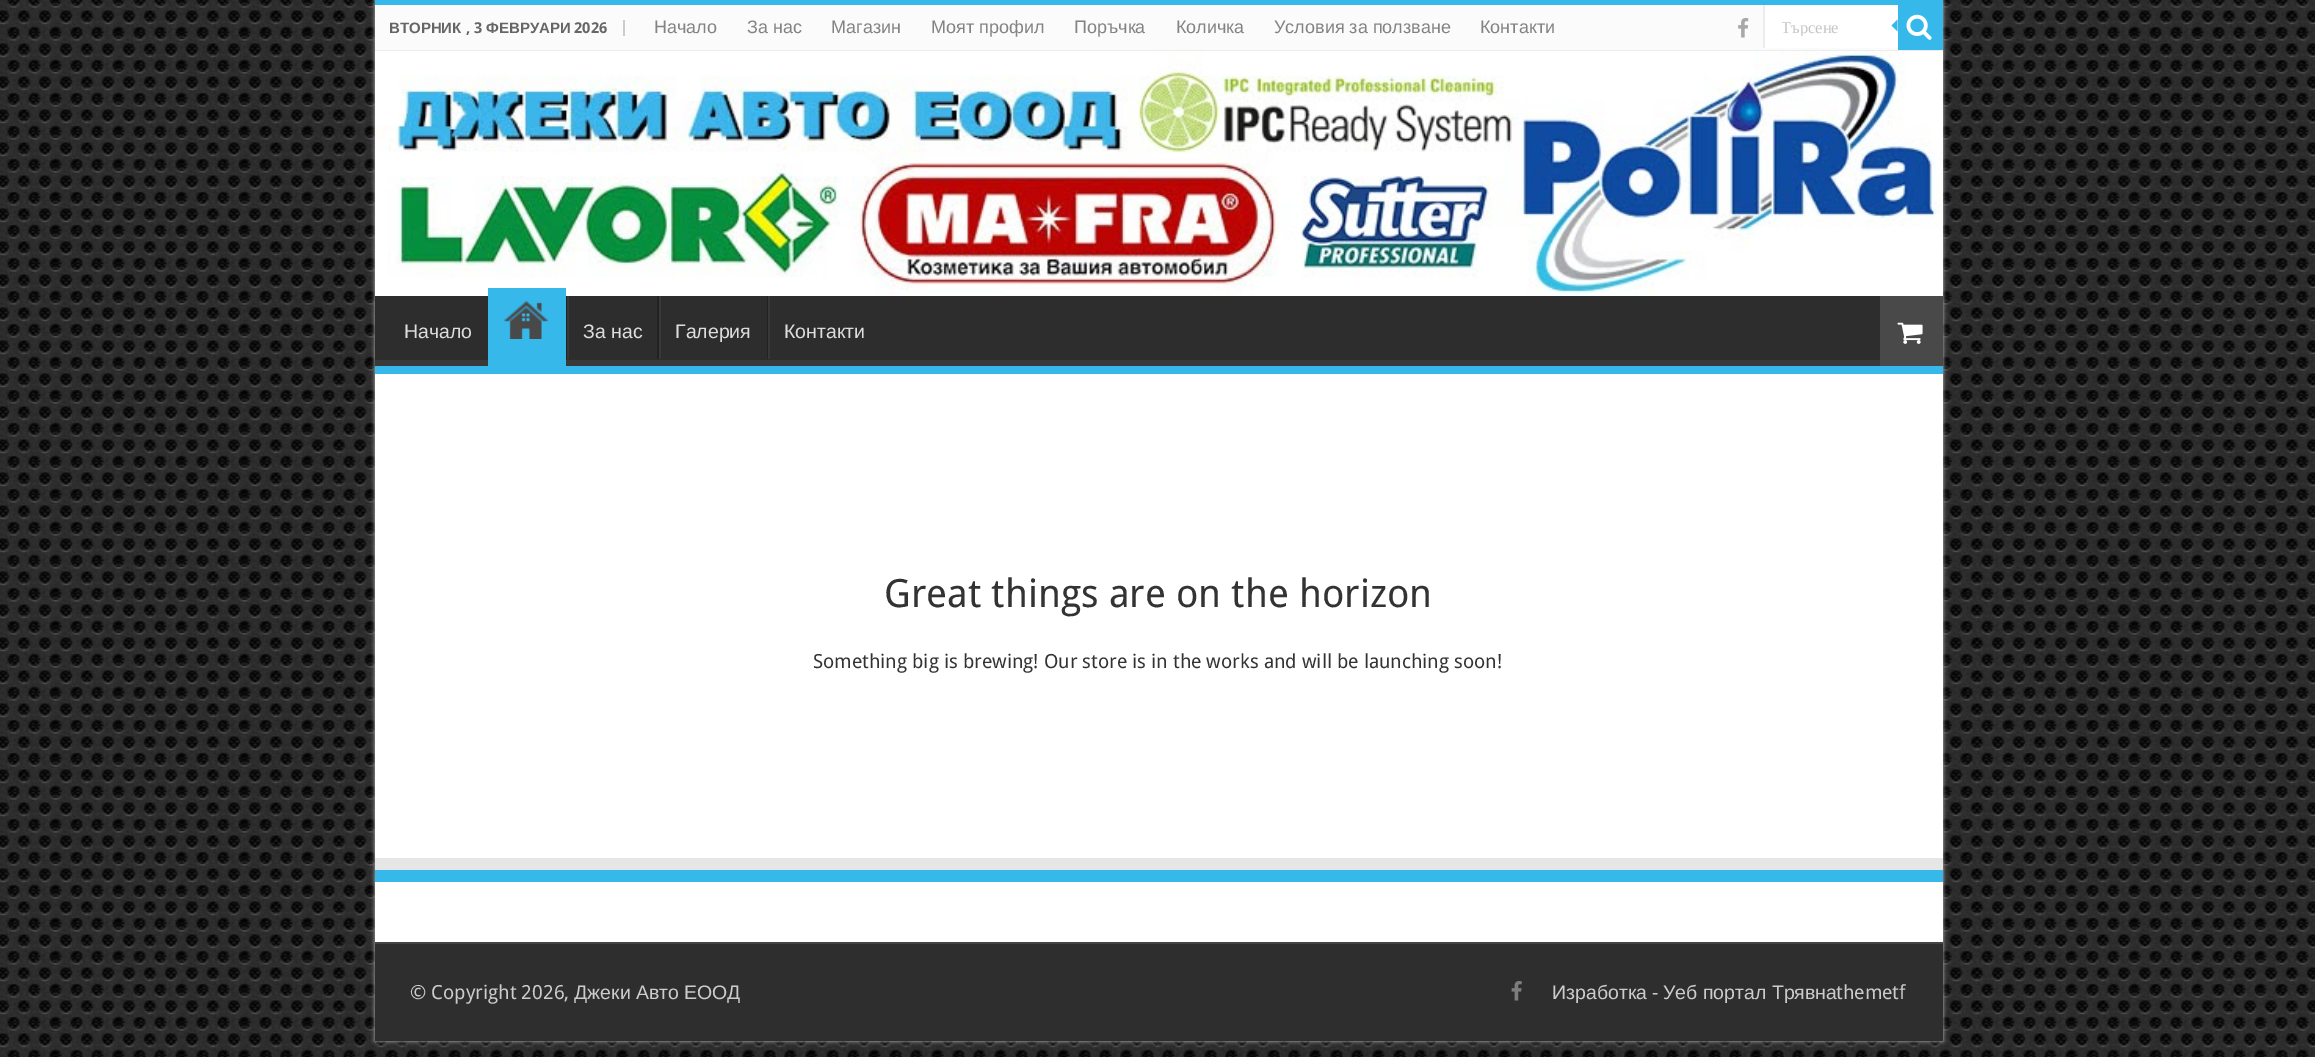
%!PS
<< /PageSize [2315 1057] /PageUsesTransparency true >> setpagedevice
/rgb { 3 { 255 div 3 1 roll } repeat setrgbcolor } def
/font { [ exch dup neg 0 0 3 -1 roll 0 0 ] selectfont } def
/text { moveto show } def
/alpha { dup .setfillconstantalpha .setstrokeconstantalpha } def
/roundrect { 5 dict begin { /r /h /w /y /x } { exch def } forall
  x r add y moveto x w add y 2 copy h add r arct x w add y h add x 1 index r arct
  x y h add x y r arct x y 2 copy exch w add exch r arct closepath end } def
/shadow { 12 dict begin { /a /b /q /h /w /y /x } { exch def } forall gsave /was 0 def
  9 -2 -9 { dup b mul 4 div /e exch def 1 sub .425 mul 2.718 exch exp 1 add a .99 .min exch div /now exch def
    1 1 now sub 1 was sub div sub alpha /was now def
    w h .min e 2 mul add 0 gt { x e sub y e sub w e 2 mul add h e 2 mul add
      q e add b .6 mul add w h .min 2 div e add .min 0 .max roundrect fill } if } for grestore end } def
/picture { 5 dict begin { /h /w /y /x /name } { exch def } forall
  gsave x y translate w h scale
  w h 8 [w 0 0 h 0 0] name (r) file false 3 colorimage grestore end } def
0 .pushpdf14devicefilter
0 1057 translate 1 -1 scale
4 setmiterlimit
255 255 255 rgb
0 0 2315 1057 rectfill
(img_01.rgb) 0 0 2315 1057 picture
202 202 202 rgb
375 0 1568 1041 0 2 1 shadow
255 255 255 rgb
375 52 1568 806 rectfill
55 184 235 rgb
375 0 1568 5 rectfill
251 251 251 rgb
375 5 1523 45 rectfill
236 236 236 rgb
375 50 1568 2 rectfill
204 204 204 rgb
623 20 2 16 rectfill
(img_02.rgb) 1738 18 11 20 picture
255 255 255 rgb
1765 5 133 43 rectfill
236 236 236 rgb
1763 5 2 43 rectfill
55 184 235 rgb
1898 5 45 45 rectfill
(img_03.rgb) 1906 14 26 26 picture
1897.5 19.5 moveto 0 12 rlineto -6 -6 rlineto closepath fill
(img_04.rgb) 375 51 1568 245 picture
45 45 45 rgb
375 296 1505 64 rectfill
gsave
375 296 1568 70 rectclip
57 57 57 rgb
226 147 moveto 1865 0 rlineto 0 367 rlineto -1865 0 rlineto closepath 374 286 moveto 1567 0 rlineto 1 0 1 1 1 2 rcurveto 0 70 rlineto 0 1 0 2 -1 2 rcurveto -1567 0 rlineto -1 0 -2 -1 -2 -2 rcurveto 0 -70 rlineto 0 -1 1 -2 2 -2 rcurveto closepath eofill
grestore
55 184 235 rgb
375 366 1568 8 rectfill
488 288 78 78 rectfill
(img_05.rgb) 504 301 45 38 picture
34 34 34 rgb
566 296 1 63 rectfill
56 56 56 rgb
567 296 2 63 rectfill
34 34 34 rgb
657 296 2 63 rectfill
56 56 56 rgb
659 296 2 63 rectfill
34 34 34 rgb
767 296 1 63 rectfill
56 56 56 rgb
768 296 2 63 rectfill
73 73 73 rgb
1880 296 63 70 rectfill
(img_06.rgb) 1897 322 26 22 picture
230 230 230 rgb
375 858 moveto 0 12 rlineto 1567 0 rlineto 0 60 rlineto 1 0 rlineto 0 -72 rlineto closepath fill
255 255 255 rgb
375 882 1568 60 rectfill
55 184 235 rgb
375 870 1568 12 rectfill
46 46 46 rgb
375 944 1568 97 rectfill
68 68 68 rgb
375 942 1568 2 rectfill
(img_07.rgb) 1511 981 11 20 picture
/LiberationSans-Bold 15 font
102 102 102 rgb
(ВТОРНИК) 389 33 text
/DroidSans-Bold 15 font
(, 3) 466 33 text
/LiberationSans-Bold 15 font
(ФЕВРУАРИ) 486 33 text
/DroidSans-Bold 15 font
(2026) 574 33 text
/LiberationSans-Regular 18 font
131 131 131 rgb
(Начало) 654 33 text
(За нас) 747 33 text
(Магазин) 831 33 text
(Моят профил) 931 33 text
(Поръчка) 1074 33 text
(Количка) 1176 33 text
(Условия за ползване) 1274 33 text
(Контакти) 1480 33 text
gsave
1782 18 98 18 rectclip
/LiberationSerif-Regular 16.5 font
197 197 197 rgb
(Търсене) 1781 33 text
grestore
/LiberationSans-Regular 19.5 font
221 221 221 rgb
(Начало) 404 338 text
(За нас) 583 338 text
(Галерия) 675 338 text
(Контакти) 784 338 text
/DroidSans-Regular 39 font
51 51 51 rgb
(Great things are on the horizon) 884 607 text
/DroidSans-Regular 19.5 font
(Something big is brewing! Our store is in the works and will be launching soon!) 813 668 text
204 204 204 rgb
(© Copyright 2026,) 410 999 text
/LiberationSans-Regular 19.5 font
(Джеки) 574 999 text
(Авто) 636 999 text
(ЕООД) 684 999 text
(Изработка) 1552 999 text
/DroidSans-Regular 19.5 font
(-) 1652 999 text
/LiberationSans-Regular 19.5 font
(Уеб портал Трявна) 1663 999 text
/DroidSans-Regular 19.5 font
(themetf) 1836 999 text
.poppdf14devicefilter showpage
